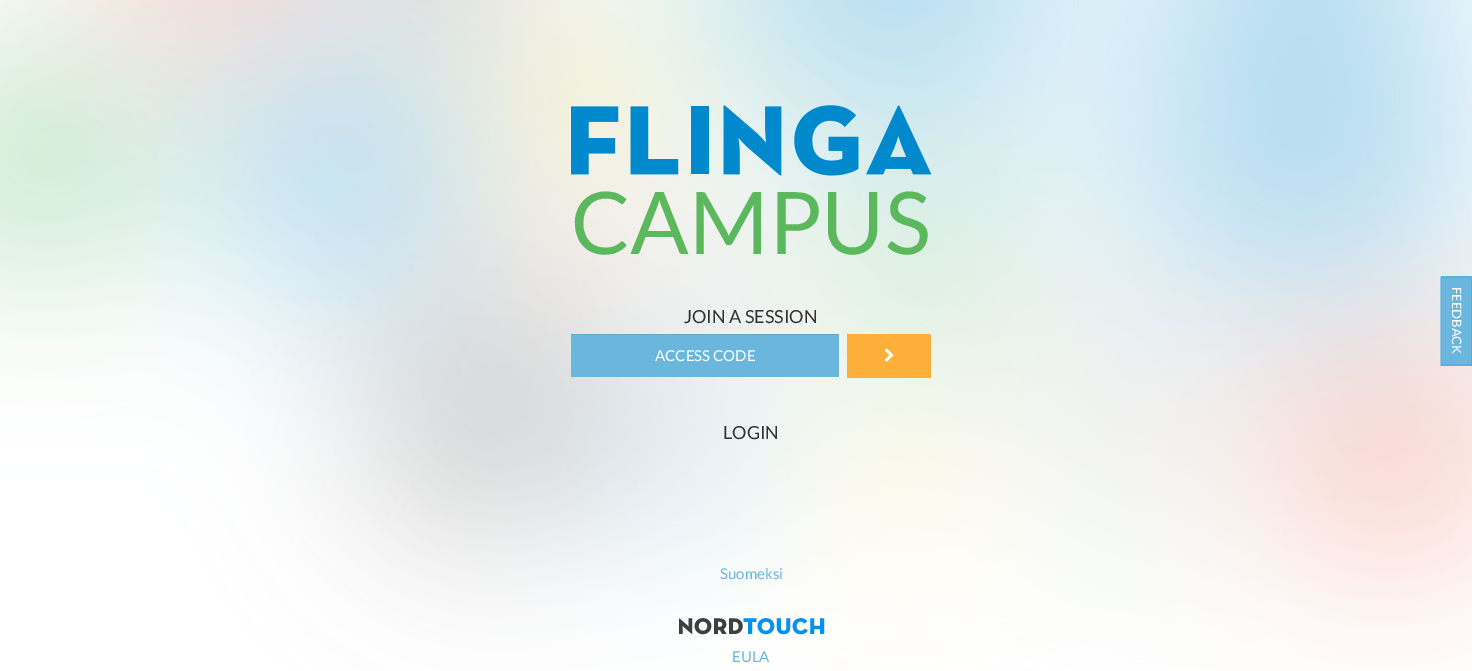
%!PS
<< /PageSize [1472 671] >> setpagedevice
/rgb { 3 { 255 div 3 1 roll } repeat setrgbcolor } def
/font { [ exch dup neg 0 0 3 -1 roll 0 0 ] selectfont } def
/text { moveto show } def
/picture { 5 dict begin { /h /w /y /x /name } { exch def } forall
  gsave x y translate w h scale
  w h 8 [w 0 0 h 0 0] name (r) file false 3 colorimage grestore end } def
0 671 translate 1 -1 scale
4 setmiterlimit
255 255 255 rgb
0 0 1472 671 rectfill
(img_01.rgb) 0 0 1472 671 picture
(img_02.rgb) 571 105 360 71 picture
107 182 221 rgb
1441 276 31 90 rectfill
86 172 216 rgb
1471.5 277 moveto 0 88 rlineto -30.5 0 rlineto 0 -88 rlineto closepath stroke
(img_03.rgb) 679 618 146 17 picture
107 182 221 rgb
571 335 268 42 rectfill
99 168 204 rgb
571 334 268 1 rectfill
252 175 57 rgb
847 334 84 44 rectfill
(img_04.rgb) 884 348 10 14 picture
/Lato-Regular 86.5 font
92 184 92 rgb
(CAMPUS) 571 254 text
/Lato-Regular 13 font
255 255 255 rgb
gsave 1452 287 translate 90 rotate 0 0 moveto (FEEDBACK) show grestore
/Lato-Regular 15 font
107 182 221 rgb
(Suomeksi) 720 579 text
(EULA) 732 662 text
/Lato-Regular 18 font
51 51 51 rgb
(JOIN A SESSION) 684 323 text
/Lato-Regular 15 font
255 255 255 rgb
(ACCESS CODE) 655 361 text
/Lato-Regular 18 font
51 51 51 rgb
(LOGIN) 723 439 text
showpage
